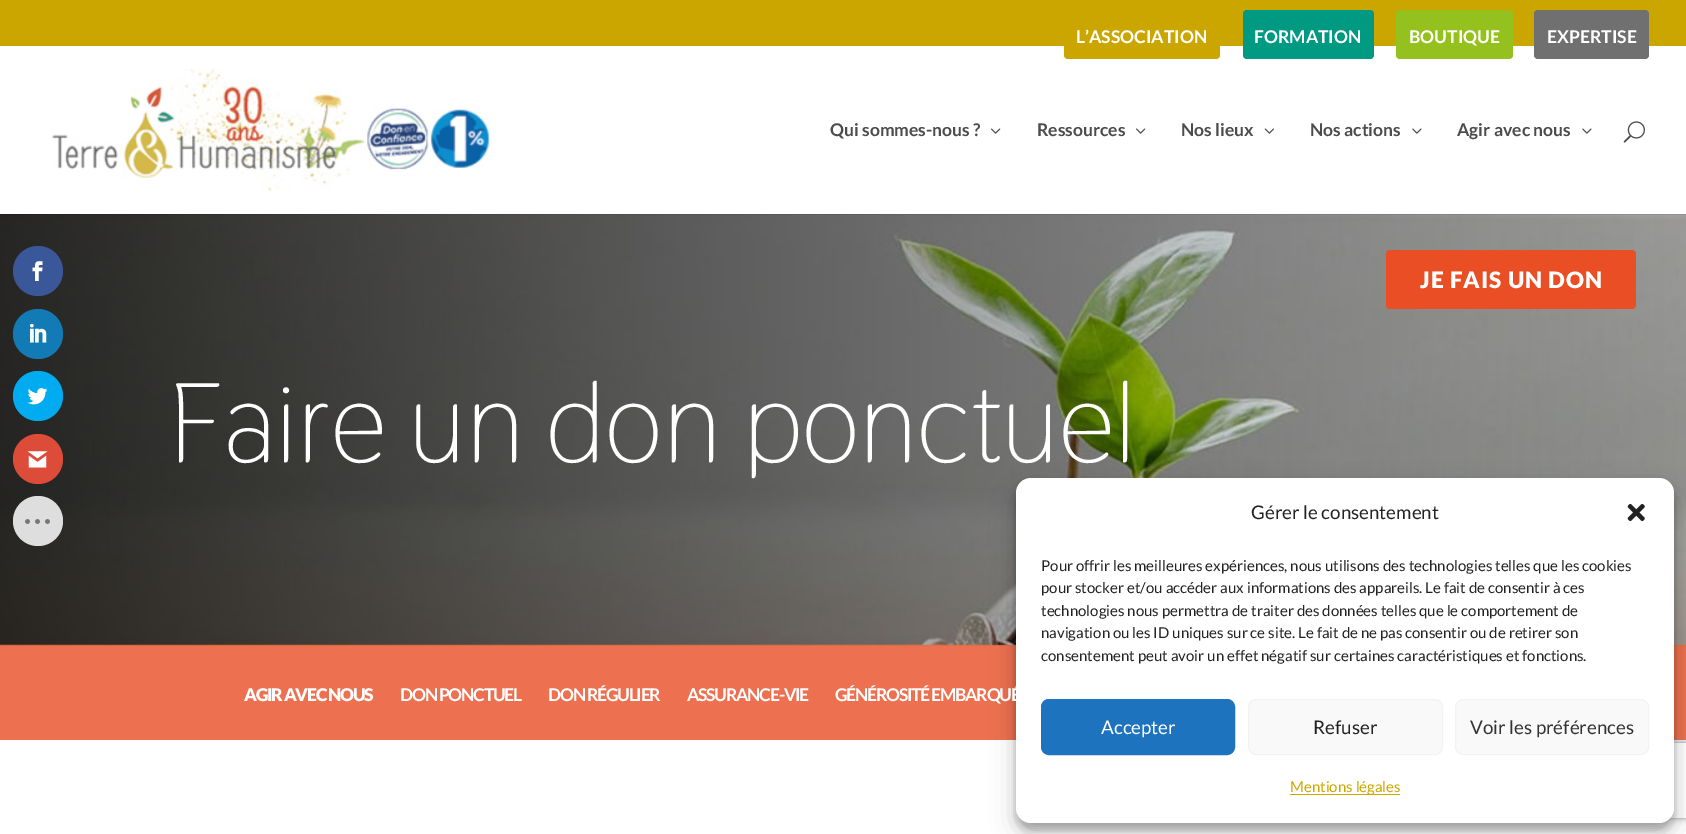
%!PS
<< /PageSize [1686 834] /PageUsesTransparency true >> setpagedevice
/rgb { 3 { 255 div 3 1 roll } repeat setrgbcolor } def
/font { [ exch dup neg 0 0 3 -1 roll 0 0 ] selectfont } def
/text { moveto show } def
/alpha { dup .setfillconstantalpha .setstrokeconstantalpha } def
/circle { newpath 0 360 arc closepath } def
/roundrect { 5 dict begin { /r /h /w /y /x } { exch def } forall
  x r add y moveto x w add y 2 copy h add r arct x w add y h add x 1 index r arct
  x y h add x y r arct x y 2 copy exch w add exch r arct closepath end } def
/shadow { 12 dict begin { /a /b /q /h /w /y /x } { exch def } forall gsave /was 0 def
  9 -2 -9 { dup b mul 4 div /e exch def 1 sub .425 mul 2.718 exch exp 1 add a .99 .min exch div /now exch def
    1 1 now sub 1 was sub div sub alpha /was now def
    w h .min e 2 mul add 0 gt { x e sub y e sub w e 2 mul add h e 2 mul add
      q e add b .6 mul add w h .min 2 div e add .min 0 .max roundrect fill } if } for grestore end } def
/picture { 5 dict begin { /h /w /y /x /name } { exch def } forall
  gsave x y translate w h scale
  w h 8 [w 0 0 h 0 0] name (r) file false 3 colorimage grestore end } def
0 .pushpdf14devicefilter
0 834 translate 1 -1 scale
4 setmiterlimit
255 255 255 rgb
0 0 1686 834 rectfill
(img_11.rgb) 0 214 1686 432 picture
58 87 154 rgb
38 271 25 circle fill
(img_01.rgb) 32 261 11 20 picture
18 123 182 rgb
38 334 25 circle fill
(img_02.rgb) 30 324 17 19 picture
0 171 240 rgb
38 396 25 circle fill
(img_03.rgb) 27 388 21 17 picture
221 75 57 rgb
38 459 25 circle fill
(img_04.rgb) 27 451 21 17 picture
222 222 222 rgb
38 521 25 circle fill
(img_05.rgb) 25 519 25 5 picture
204 166 0 rgb
0 0 1686 46 rectfill
1064 10 156 49 4 roundrect fill
0 153 130 rgb
1243 10 131 49 4 roundrect fill
149 193 31 rgb
1396 10 117 49 4 roundrect fill
112 112 112 rgb
1534 10 115 49 4 roundrect fill
0.1 alpha
0 0 0 rgb
0 214 1686 1 rectfill
1 alpha
(img_06.rgb) 52 68 438 123 picture
(img_07.rgb) 991 128 10 6 picture
(img_07.rgb) 1136 128 10 6 picture
(img_08.rgb) 1264 128 10 6 picture
(img_09.rgb) 1412 128 10 6 picture
(img_09.rgb) 1582 128 10 6 picture
(img_10.rgb) 1623 121 22 22 picture
0.8 alpha
233 78 36 rgb
0 645 1686 95 rectfill
1 alpha
1386 250 250 59 4 roundrect fill
0 0 0 rgb
1016 485 658 345 15 4 0.23 shadow
1016 490 658 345 15 12.5 0.19 shadow
gsave
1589 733 moveto 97 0 rlineto 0 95 rlineto -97 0 rlineto closepath 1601.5 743 moveto 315 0 rlineto 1.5 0 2.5 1 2.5 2.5 rcurveto 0 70 rlineto 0 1.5 -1 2.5 -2.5 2.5 rcurveto -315 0 rlineto -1.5 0 -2.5 -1 -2.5 -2.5 rcurveto 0 -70 rlineto 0 -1.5 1 -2.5 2.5 -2.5 rcurveto closepath eoclip newpath
128 128 128 rgb
1599 743 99 75 2.5 3 1 shadow
grestore
255 255 255 rgb
1016 478 658 345 15 roundrect fill
(img_12.rgb) 1627 503 18 19 picture
30 115 190 rgb
1041.5 699.5 193 55 7.5 roundrect gsave fill grestore
stroke
249 249 249 rgb
1248.5 699.5 194 55 7.5 roundrect gsave fill grestore
242 242 242 rgb
stroke
249 249 249 rgb
1455.5 699.5 193 55 7.5 roundrect gsave fill grestore
242 242 242 rgb
stroke
204 167 0 rgb
1290 794 110 1 rectfill
/Lato-Bold 17.5 font
255 255 255 rgb
(L’ASSOCIATION) 1076 43 text
(FORMATION) 1254 43 text
(BOUTIQUE) 1409 43 text
(EXPERTISE) 1547 43 text
76 76 76 rgb
(Qui sommes-nous ?) 830 136 text
(Ressources) 1037 136 text
(Nos lieux) 1181 136 text
(Nos actions) 1310 136 text
(Agir avec nous) 1457 136 text
/Thasadith-Regular 112.5 font
255 255 255 rgb
(Faire un don ponctuel) 169 462 text
/Lato-Black 17.5 font
244 701 moveto -1.25 0 (AGIR AVEC NOUS) ashow
/Lato-Bold 17.5 font
400 701 moveto -1.25 0 (DON PONCTUEL) ashow
548 701 moveto -1.25 0 (DON RÉGULIER) ashow
687 701 moveto -1.25 0 (ASSURANCE-VIE) ashow
835 701 moveto -1.25 0 (GÉNÉROSITÉ EMBARQUÉ) ashow
/Lato-Black 22.5 font
1420 288 moveto 1 0 (JE FAIS UN DON) ashow
/Lato-Regular 18.75 font
34 34 34 rgb
(Gérer le consentement) 1251 519 text
/Lato-Regular 15 font
(Pour offrir les meilleures expériences, nous utilisons des technologies telles que les cookies) 1041 571 text
(pour stocker et/ou accéder aux informations des appareils. Le fait de consentir à ces) 1041 593 text
(technologies nous permettra de traiter des données telles que le comportement de) 1041 616 text
(navigation ou les ID uniques sur ce site. Le fait de ne pas consentir ou de retirer son) 1041 638 text
(consentement peut avoir un effet négatif sur certaines caractéristiques et fonctions.) 1041 661 text
/Lato-Regular 18.75 font
255 255 255 rgb
(Accepter) 1101 734 text
34 34 34 rgb
(Refuser) 1313 734 text
51 51 51 rgb
(Voir les préférences) 1470 734 text
/Lato-Regular 15 font
204 167 0 rgb
(Mentions légales) 1290 792 text
.poppdf14devicefilter showpage
